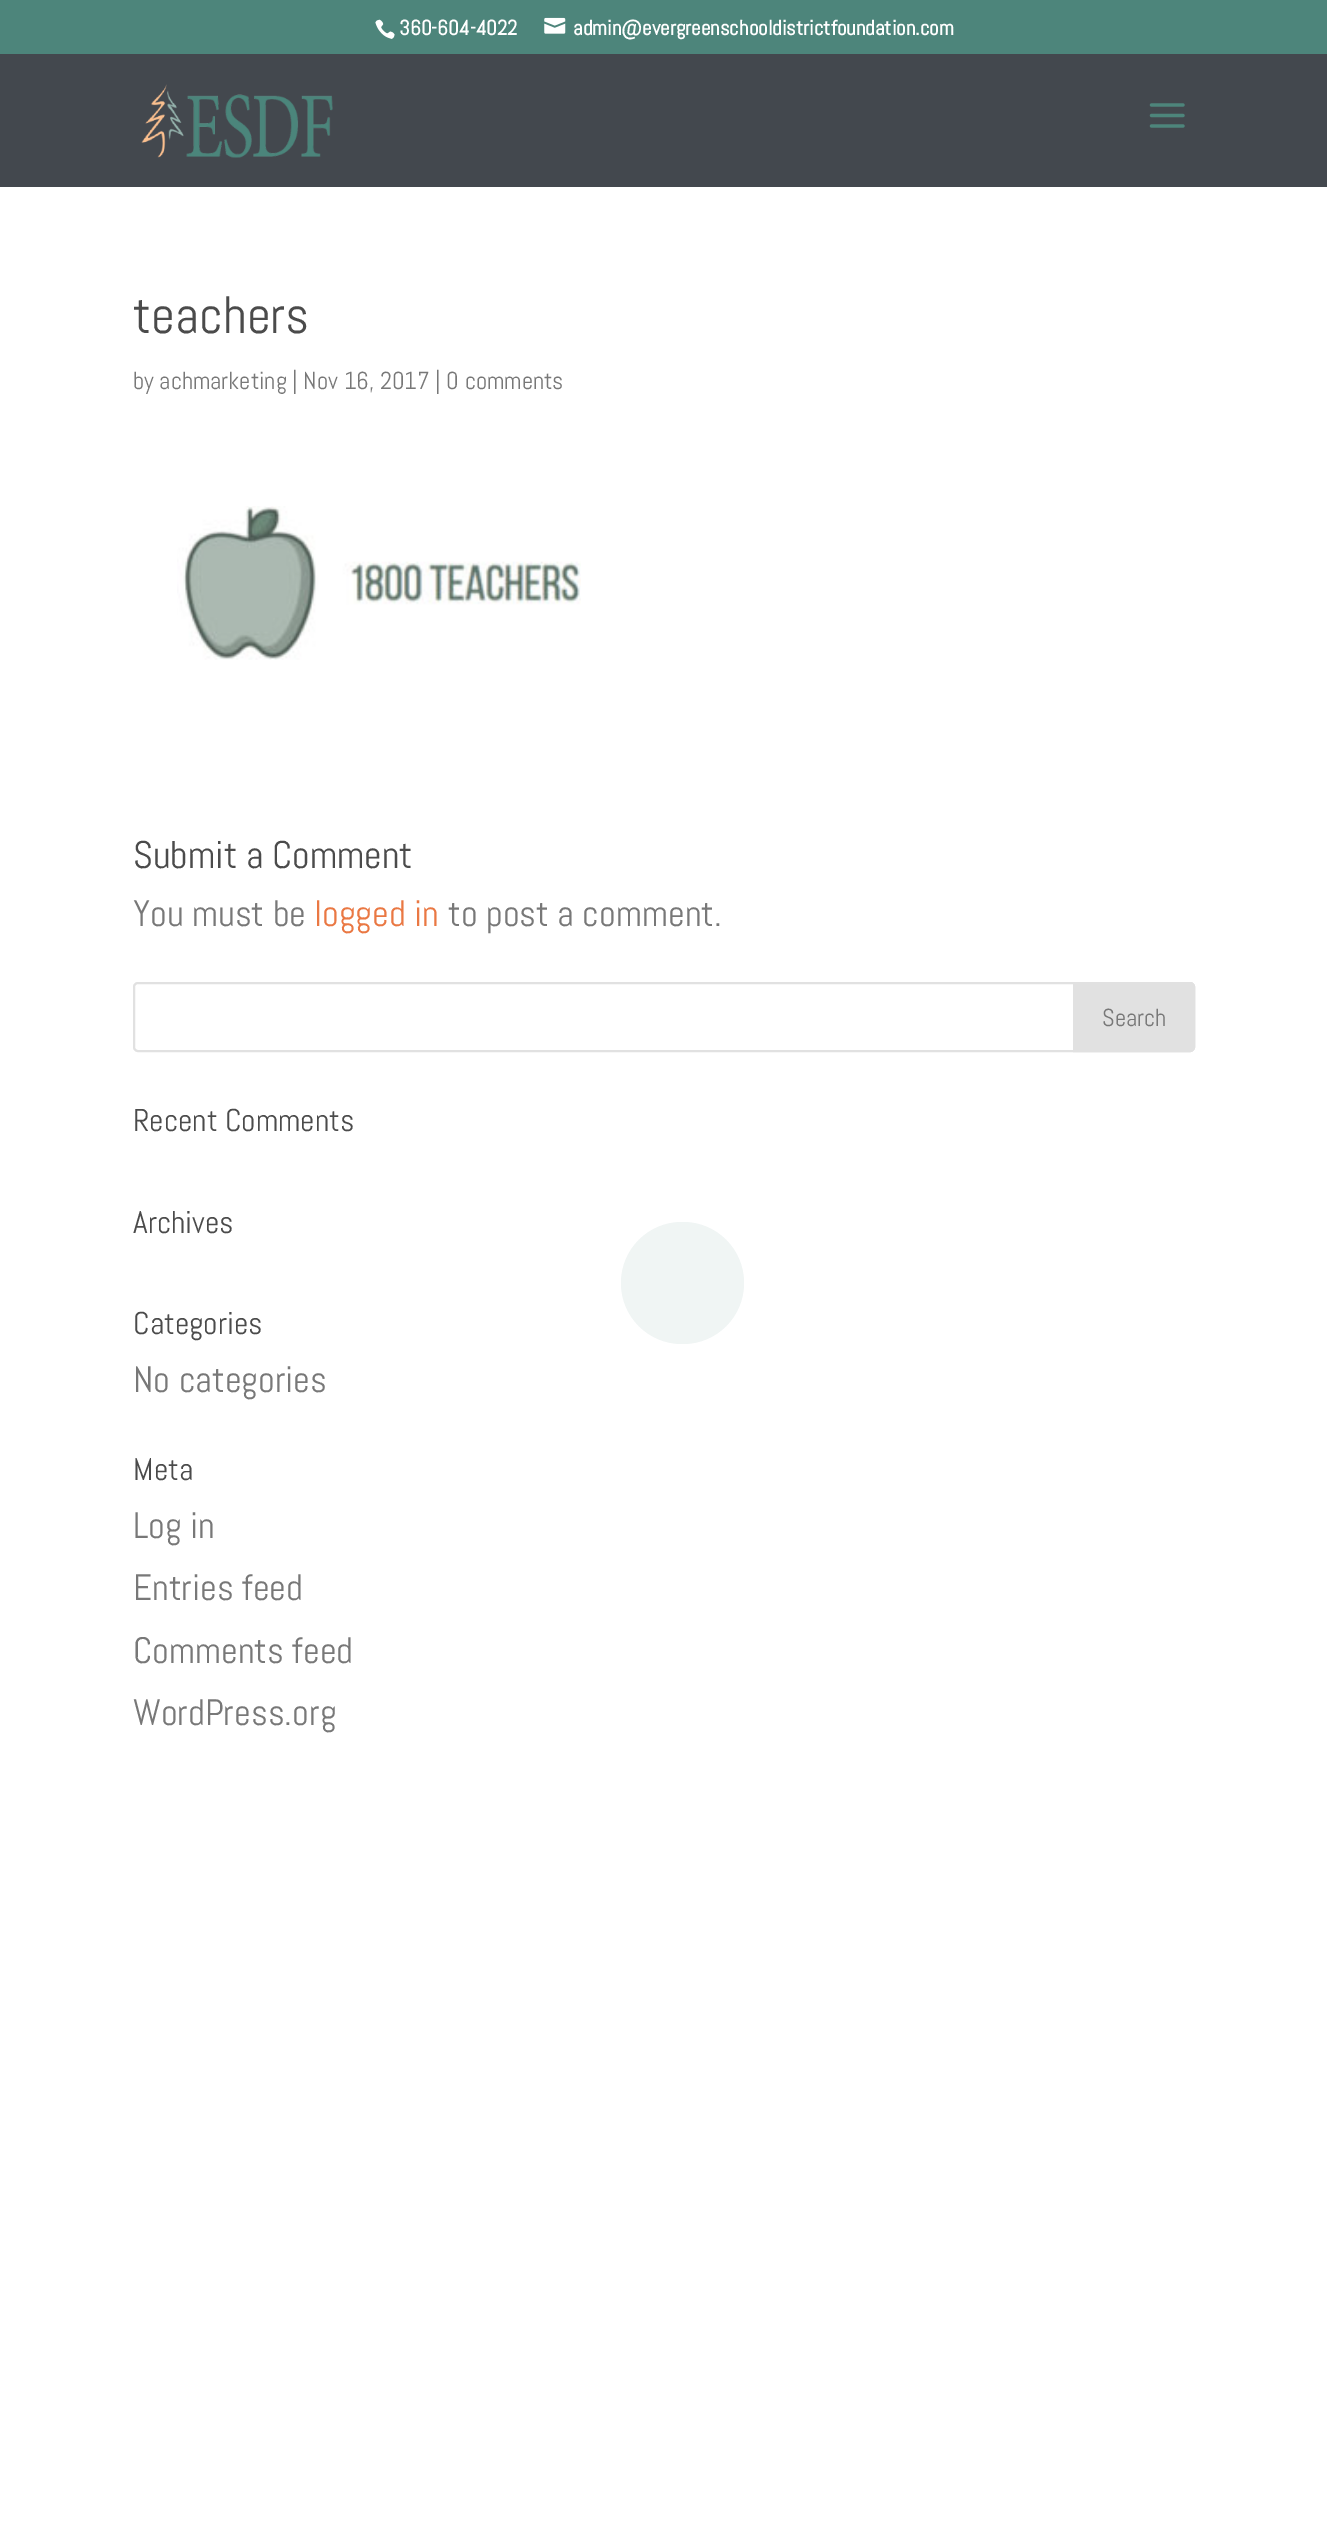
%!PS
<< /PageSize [1327 2528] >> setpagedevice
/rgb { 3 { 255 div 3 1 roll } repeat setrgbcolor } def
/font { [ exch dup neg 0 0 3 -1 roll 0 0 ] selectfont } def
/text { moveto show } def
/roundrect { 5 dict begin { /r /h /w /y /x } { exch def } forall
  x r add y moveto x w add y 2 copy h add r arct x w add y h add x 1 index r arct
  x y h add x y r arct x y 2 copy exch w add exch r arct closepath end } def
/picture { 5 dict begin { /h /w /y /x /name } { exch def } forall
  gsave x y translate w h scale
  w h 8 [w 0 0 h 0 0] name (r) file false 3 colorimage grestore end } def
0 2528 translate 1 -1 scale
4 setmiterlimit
255 255 255 rgb
0 0 1327 2528 rectfill
77 133 123 rgb
0 0 1327 54 rectfill
(img_01.rgb) 375 19 20 20 picture
(img_02.rgb) 544 17 22 17 picture
67 72 78 rgb
0 54 1327 133 rectfill
(img_03.rgb) 141 84 192 74 picture
(img_04.rgb) 1149 103 36 25 picture
(img_05.rgb) 177 506 404 154 picture
225 225 225 rgb
2 setlinewidth
134 983 1060 68 4 roundrect stroke
1074 983 moveto 116 0 rlineto 2 0 4 2 4 4 rcurveto 0 60 rlineto 0 2 -2 4 -4 4 rcurveto -116 0 rlineto closepath gsave fill grestore
stroke
240 245 244 rgb
621 1222 123 122 61 roundrect fill
/Abel-Bold 21 font
255 255 255 rgb
(360-604-4022) 399 35 text
(admin@evergreenschooldistrictfoundation.com) 573 35 text
/Abel-Regular 52.5 font
75 75 75 rgb
(teachers) 133 333 text
/Abel-Regular 24.5 font
120 120 120 rgb
(by achmarketing | Nov 16, 2017 | 0 comments) 133 389 text
/Abel-Regular 38.5 font
75 75 75 rgb
(Submit a Comment) 133 868 text
/Abel-Regular 36.75 font
120 120 120 rgb
(You must be) 133 926 text
234 120 67 rgb
(logged in) 314 926 text
120 120 120 rgb
(to post a comment.) 448 926 text
/Abel-Regular 24.5 font
(Search) 1102 1026 text
/Abel-Regular 31.5 font
75 75 75 rgb
(Recent Comments) 133 1131 text
(Archives) 133 1233 text
(Categories) 133 1334 text
/Abel-Regular 36.75 font
120 120 120 rgb
(No categories) 133 1392 text
/Abel-Regular 31.5 font
75 75 75 rgb
(Meta) 133 1480 text
/Abel-Regular 36.75 font
120 120 120 rgb
(Log in) 133 1538 text
(Entries feed) 133 1600 text
(Comments feed) 133 1663 text
(WordPress.org) 133 1725 text
showpage
